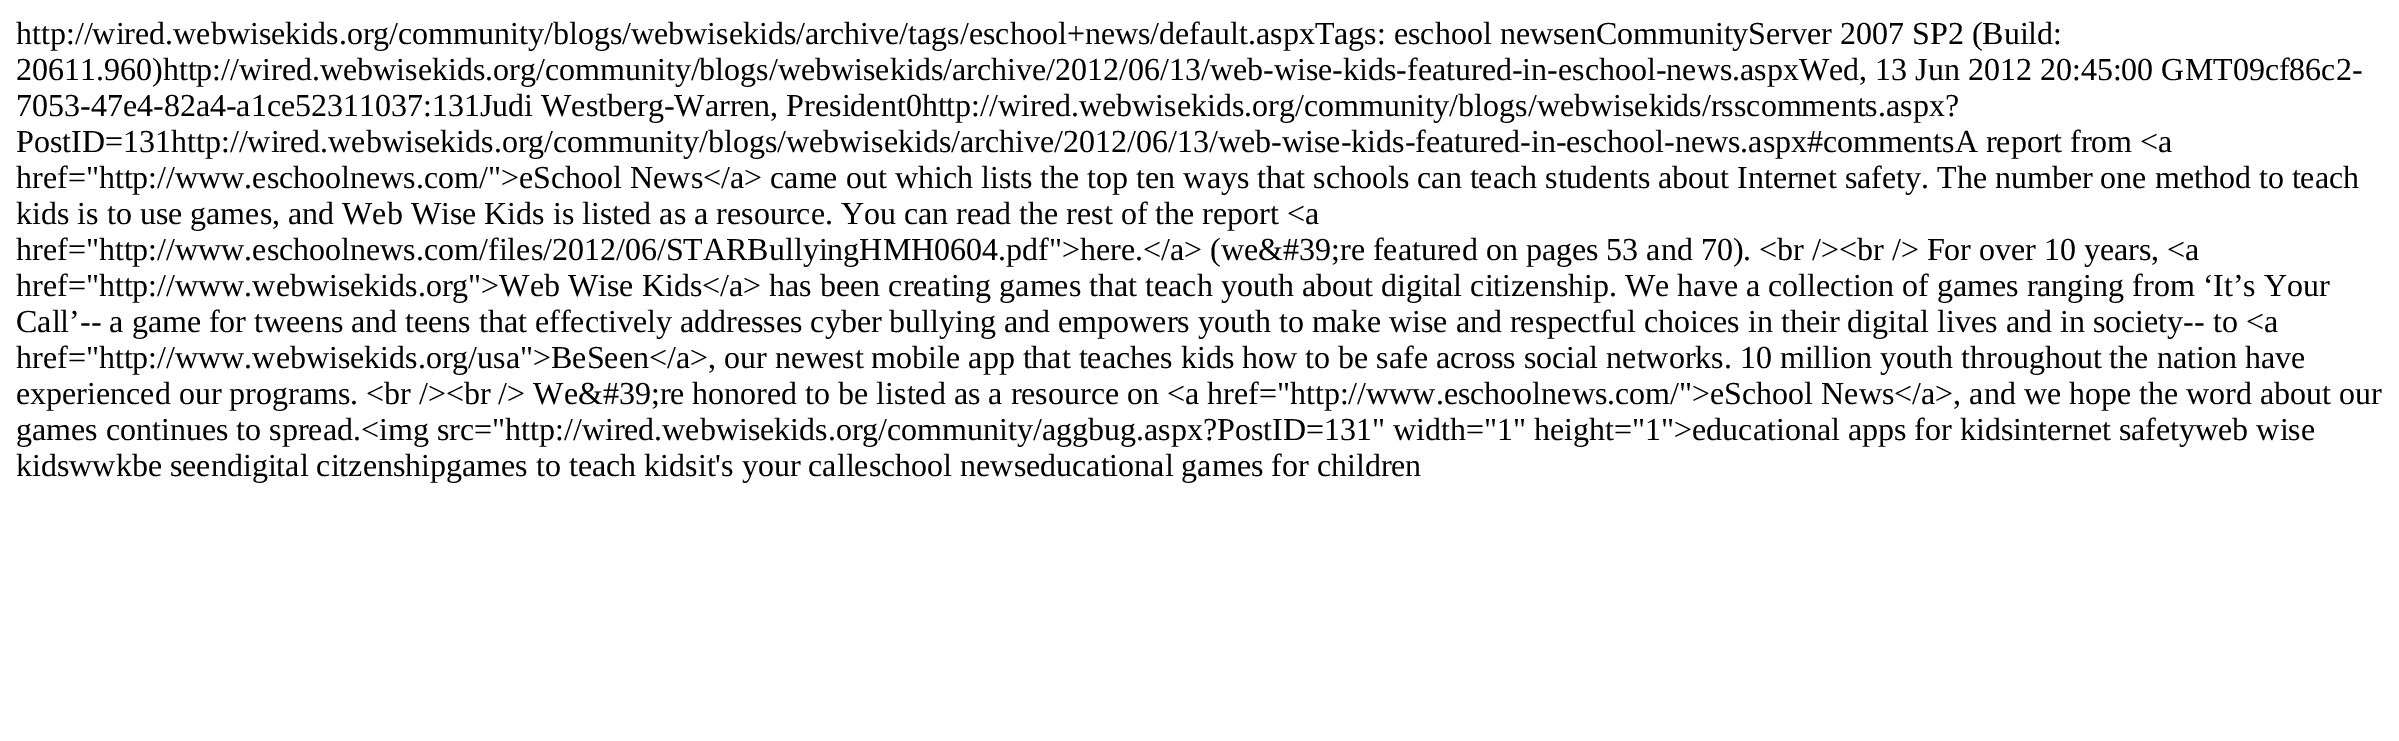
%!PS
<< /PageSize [2399 741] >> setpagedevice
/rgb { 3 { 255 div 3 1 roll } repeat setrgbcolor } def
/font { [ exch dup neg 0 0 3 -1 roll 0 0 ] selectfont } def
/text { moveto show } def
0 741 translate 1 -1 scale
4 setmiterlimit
255 255 255 rgb
0 0 2399 741 rectfill
/LiberationSerif-Regular 32 font
0 0 0 rgb
(http://wired.webwisekids.org/community/blogs/webwisekids/archive/tags/eschool+news/default.aspxTags: eschool newsenCommunityServer 2007 SP2 \(Build:) 16 44 text
(20611.960\)http://wired.webwisekids.org/community/blogs/webwisekids/archive/2012/06/13/web-wise-kids-featured-in-eschool-news.aspxWed, 13 Jun 2012 20:45:00 GMT09cf86c2-) 16 80 text
(7053-47e4-82a4-a1ce52311037:131Judi Westberg-Warren, President0http://wired.webwisekids.org/community/blogs/webwisekids/rsscomments.aspx?) 16 116 text
(PostID=131http://wired.webwisekids.org/community/blogs/webwisekids/archive/2012/06/13/web-wise-kids-featured-in-eschool-news.aspx#commentsA report from <a) 16 152 text
(href="http://www.eschoolnews.com/">eSchool News</a> came out which lists the top ten ways that schools can teach students about Internet safety. The number one method to teach) 16 188 text
(kids is to use games, and Web Wise Kids is listed as a resource. You can read the rest of the report <a) 16 224 text
(href="http://www.eschoolnews.com/files/2012/06/STARBullyingHMH0604.pdf">here.</a> \(we&#39;re featured on pages 53 and 70\). <br /><br /> For over 10 years, <a) 16 260 text
(href="http://www.webwisekids.org">Web Wise Kids</a> has been creating games that teach youth about digital citizenship. We have a collection of games ranging from ‘It’s Your) 16 296 text
(Call’-- a game for tweens and teens that effectively addresses cyber bullying and empowers youth to make wise and respectful choices in their digital lives and in society-- to <a) 16 332 text
(href="http://www.webwisekids.org/usa">BeSeen</a>, our newest mobile app that teaches kids how to be safe across social networks. 10 million youth throughout the nation have) 16 368 text
(experienced our programs. <br /><br /> We&#39;re honored to be listed as a resource on <a href="http://www.eschoolnews.com/">eSchool News</a>, and we hope the word about our) 16 404 text
(games continues to spread.<img src="http://wired.webwisekids.org/community/aggbug.aspx?PostID=131" width="1" height="1">educational apps for kidsinternet safetyweb wise) 16 440 text
(kidswwkbe seendigital citzenshipgames to teach kidsit's your calleschool newseducational games for children) 16 476 text
showpage
